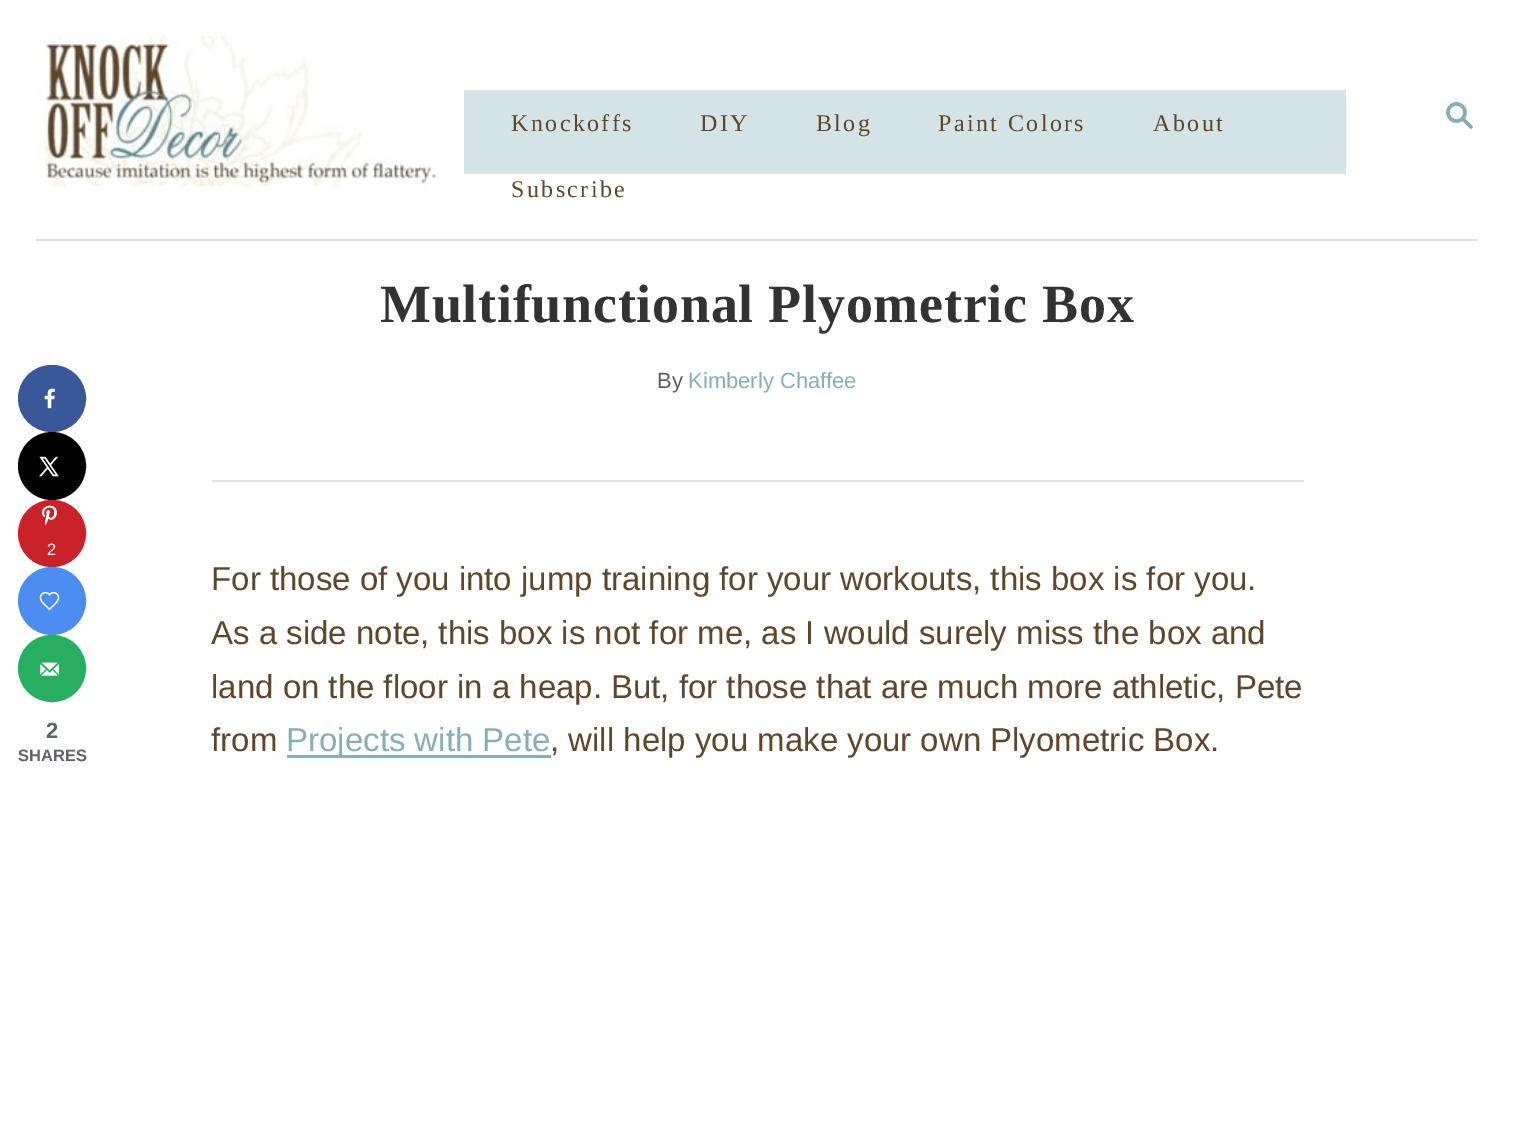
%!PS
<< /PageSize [1513 1145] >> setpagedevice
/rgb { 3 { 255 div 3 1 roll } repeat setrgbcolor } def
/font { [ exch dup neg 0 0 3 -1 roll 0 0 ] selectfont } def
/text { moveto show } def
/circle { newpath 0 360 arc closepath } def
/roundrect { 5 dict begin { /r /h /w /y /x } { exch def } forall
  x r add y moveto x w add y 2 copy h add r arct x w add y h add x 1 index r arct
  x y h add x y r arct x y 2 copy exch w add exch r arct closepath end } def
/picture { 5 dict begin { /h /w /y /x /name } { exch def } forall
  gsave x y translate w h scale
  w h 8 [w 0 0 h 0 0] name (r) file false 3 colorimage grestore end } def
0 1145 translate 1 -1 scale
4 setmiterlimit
255 255 255 rgb
0 0 1513 1145 rectfill
225 225 225 rgb
36 239 1442 2 rectfill
(img_01.rgb) 36 36 404 150 picture
212 227 229 rgb
464 90 882 84 rectfill
(img_02.rgb) 1446 102 27 27 picture
58 87 154 rgb
19.5 366.5 65 64 32 roundrect gsave fill grestore
3 setlinewidth
stroke
(img_03.rgb) 44 388 11 21 picture
0 0 0 rgb
52 466 32.5 circle gsave fill grestore
stroke
(img_04.rgb) 39 456 20 21 picture
201 34 40 rgb
19.5 501.5 65 64 32 roundrect gsave fill grestore
stroke
(img_05.rgb) 41 505 16 21 picture
75 141 240 rgb
52 601 32.5 circle gsave fill grestore
stroke
(img_06.rgb) 39 591 21 20 picture
39 174 96 rgb
19.5 636.5 65 64 32 roundrect gsave fill grestore
stroke
(img_07.rgb) 40 662 19 14 picture
225 225 225 rgb
212 480 1092 2 rectfill
134 174 179 rgb
287 755 264 3 rectfill
/LiberationSerif-Regular 24 font
95 69 42 rgb
511 131 moveto 2.4 0 (Knockoffs) ashow
700 131 moveto 2.4 0 (DIY) ashow
816 131 moveto 2.4 0 (Blog) ashow
938 131 moveto 2.4 0 (Paint Colors) ashow
1153 131 moveto 2.4 0 (About) ashow
511 197 moveto 2.4 0 (Subscribe) ashow
/LiberationSans-Regular 16.5 font
255 255 255 rgb
47 555 moveto 1 0 (2) ashow
/LiberationSans-Bold 22 font
93 99 104 rgb
(2) 46 738 text
/LiberationSans-Bold 16.5 font
(SHARES) 18 761 text
/LiberationSerif-Bold 54 font
51 51 51 rgb
380 322 moveto 0.75 0 (Multifunctional Plyometric Box) ashow
/LiberationSans-Regular 22 font
96 96 96 rgb
(By) 657 388 text
134 174 179 rgb
(Kimberly Chaffee) 688 388 text
/LiberationSans-Regular 33 font
95 69 42 rgb
(For those of you into jump training for your workouts, this box is for you.) 211 590 text
(As a side note, this box is not for me, as I would surely miss the box and) 211 644 text
(land on the floor in a heap. But, for those that are much more athletic, Pete) 211 698 text
(from) 211 751 text
134 174 179 rgb
(Projects with Pete) 286 751 text
95 69 42 rgb
(, will help you make your own Plyometric Box.) 550 751 text
showpage
